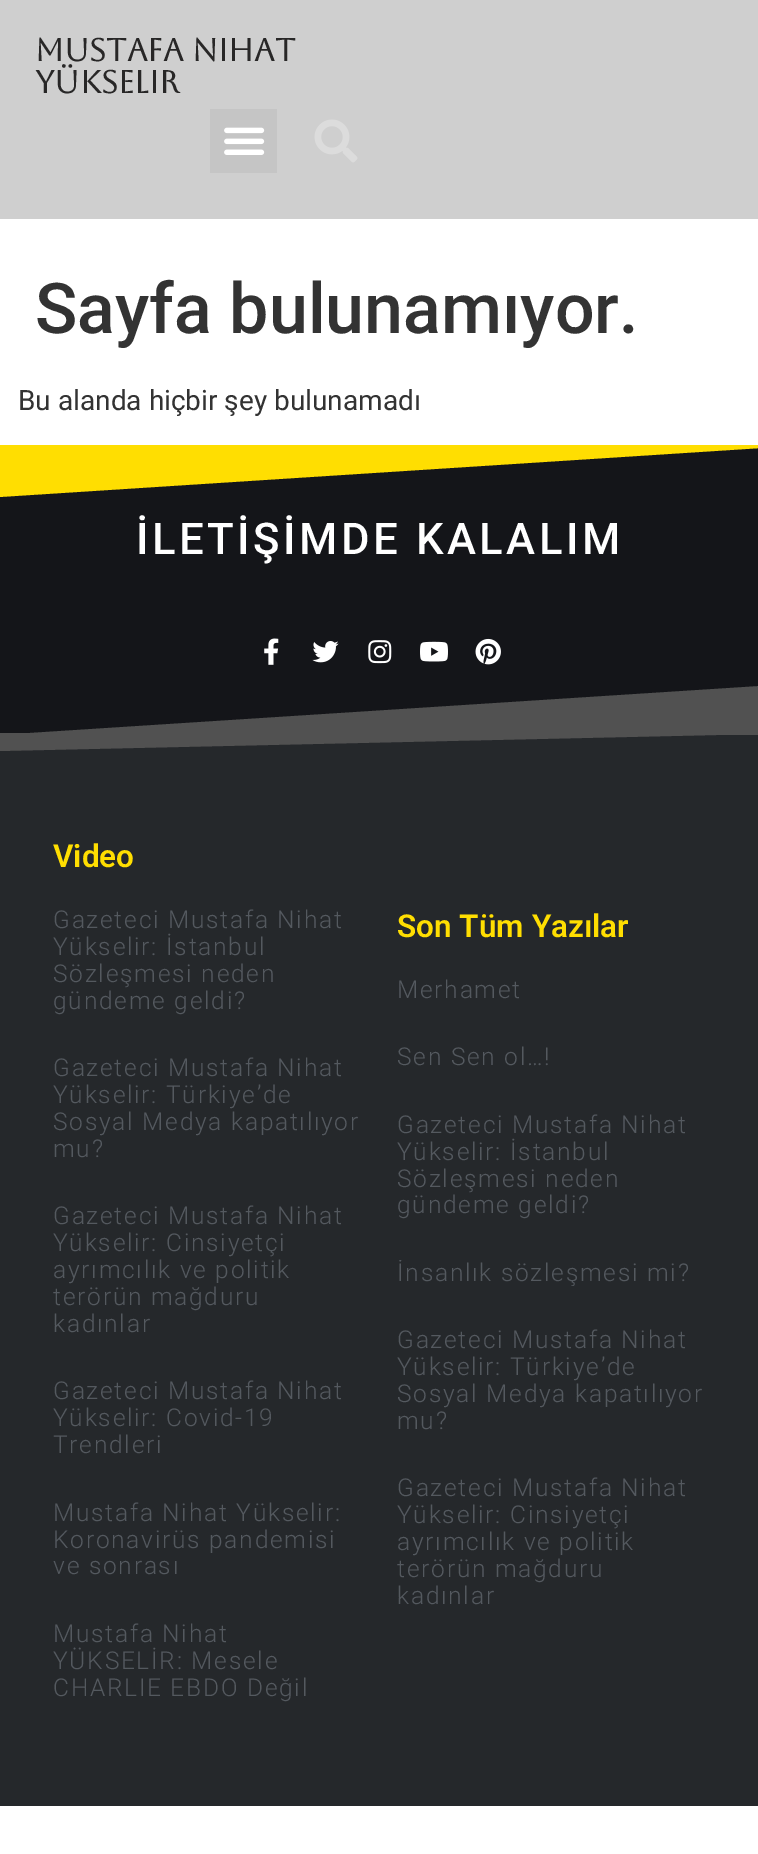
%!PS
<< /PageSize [758 1854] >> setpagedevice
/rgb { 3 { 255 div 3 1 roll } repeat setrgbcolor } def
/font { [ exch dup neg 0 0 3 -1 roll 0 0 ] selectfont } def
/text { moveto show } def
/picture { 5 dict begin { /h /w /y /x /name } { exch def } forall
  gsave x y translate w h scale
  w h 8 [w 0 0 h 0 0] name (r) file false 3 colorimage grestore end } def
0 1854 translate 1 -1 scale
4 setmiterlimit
255 255 255 rgb
0 0 758 1854 rectfill
207 207 207 rgb
0 0 758 219 rectfill
197 197 197 rgb
210 109 67 64 rectfill
(img_01.rgb) 224 127 41 28 picture
(img_02.rgb) 314 119 44 44 picture
20 21 25 rgb
0 448 758 285 rectfill
gsave
0 445 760 52 rectclip
255 222 1 rgb
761 448 moveto 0 -4 rlineto -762 0 rlineto 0 53 rlineto closepath fill
grestore
(img_03.rgb) 264 638 15 27 picture
(img_04.rgb) 312 641 27 22 picture
(img_05.rgb) 368 640 24 24 picture
(img_06.rgb) 420 641 28 21 picture
(img_07.rgb) 475 638 26 27 picture
81 81 81 rgb
-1 735 moveto 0 3 rlineto 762 0 rlineto 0 -52 rlineto closepath fill
37 40 43 rgb
0 735 758 1071 rectfill
81 81 81 rgb
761 734 moveto 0 -1 rlineto -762 0 rlineto 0 18 rlineto closepath fill
/Aboreto-Bold 31.5 font
40 39 39 rgb
(Mustafa Nihat) 35 61 text
(Yükselir) 35 93 text
/Roboto-Medium 70 font
51 51 51 rgb
(Sayfa bulunamıyor.) 35 333 text
/Roboto-Regular 28 font
(Bu alanda hiçbir şey bulunamadı) 18 410 text
/Roboto-Medium 43.75 font
255 255 255 rgb
136 554 moveto 3.5 0 (İLETİŞİMDE KALALIM) ashow
/Roboto-SemiBold 31.5 font
255 222 1 rgb
(Video) 53 867 text
/Roboto-Light 24.5 font
84 89 95 rgb
53 928 moveto 1.75 0 (Gazeteci Mustafa Nihat) ashow
53 955 moveto 1.75 0 (Yükselir: İstanbul) ashow
53 982 moveto 1.75 0 (Sözleşmesi neden) ashow
53 1009 moveto 1.75 0 (gündeme geldi?) ashow
53 1076 moveto 1.75 0 (Gazeteci Mustafa Nihat) ashow
53 1103 moveto 1.75 0 (Yükselir: Türkiye’de) ashow
53 1130 moveto 1.75 0 (Sosyal Medya kapatılıyor) ashow
53 1157 moveto 1.75 0 (mu?) ashow
53 1224 moveto 1.75 0 (Gazeteci Mustafa Nihat) ashow
53 1251 moveto 1.75 0 (Yükselir: Cinsiyetçi) ashow
53 1278 moveto 1.75 0 (ayrımcılık ve politik) ashow
53 1305 moveto 1.75 0 (terörün mağduru) ashow
53 1332 moveto 1.75 0 (kadınlar) ashow
53 1399 moveto 1.75 0 (Gazeteci Mustafa Nihat) ashow
53 1426 moveto 1.75 0 (Yükselir: Covid-19) ashow
53 1453 moveto 1.75 0 (Trendleri) ashow
53 1521 moveto 1.75 0 (Mustafa Nihat Yükselir:) ashow
53 1548 moveto 1.75 0 (Koronavirüs pandemisi) ashow
53 1574 moveto 1.75 0 (ve sonrası) ashow
53 1642 moveto 1.75 0 (Mustafa Nihat) ashow
53 1669 moveto 1.75 0 (YÜKSELİR: Mesele) ashow
53 1696 moveto 1.75 0 (CHARLIE EBDO Değil) ashow
/Roboto-SemiBold 31.5 font
255 222 1 rgb
(Son Tüm Yazılar) 397 937 text
/Roboto-Light 24.5 font
84 89 95 rgb
397 998 moveto 1.75 0 (Merhamet) ashow
397 1065 moveto 1.75 0 (Sen Sen ol…!) ashow
397 1133 moveto 1.75 0 (Gazeteci Mustafa Nihat) ashow
397 1160 moveto 1.75 0 (Yükselir: İstanbul) ashow
397 1187 moveto 1.75 0 (Sözleşmesi neden) ashow
397 1213 moveto 1.75 0 (gündeme geldi?) ashow
gsave
397 1260 310 26 rectclip
397 1281 moveto 1.75 0 (İnsanlık sözleşmesi mi?) ashow
grestore
397 1348 moveto 1.75 0 (Gazeteci Mustafa Nihat) ashow
397 1375 moveto 1.75 0 (Yükselir: Türkiye’de) ashow
397 1402 moveto 1.75 0 (Sosyal Medya kapatılıyor) ashow
397 1429 moveto 1.75 0 (mu?) ashow
397 1496 moveto 1.75 0 (Gazeteci Mustafa Nihat) ashow
397 1523 moveto 1.75 0 (Yükselir: Cinsiyetçi) ashow
397 1550 moveto 1.75 0 (ayrımcılık ve politik) ashow
397 1577 moveto 1.75 0 (terörün mağduru) ashow
397 1604 moveto 1.75 0 (kadınlar) ashow
showpage
